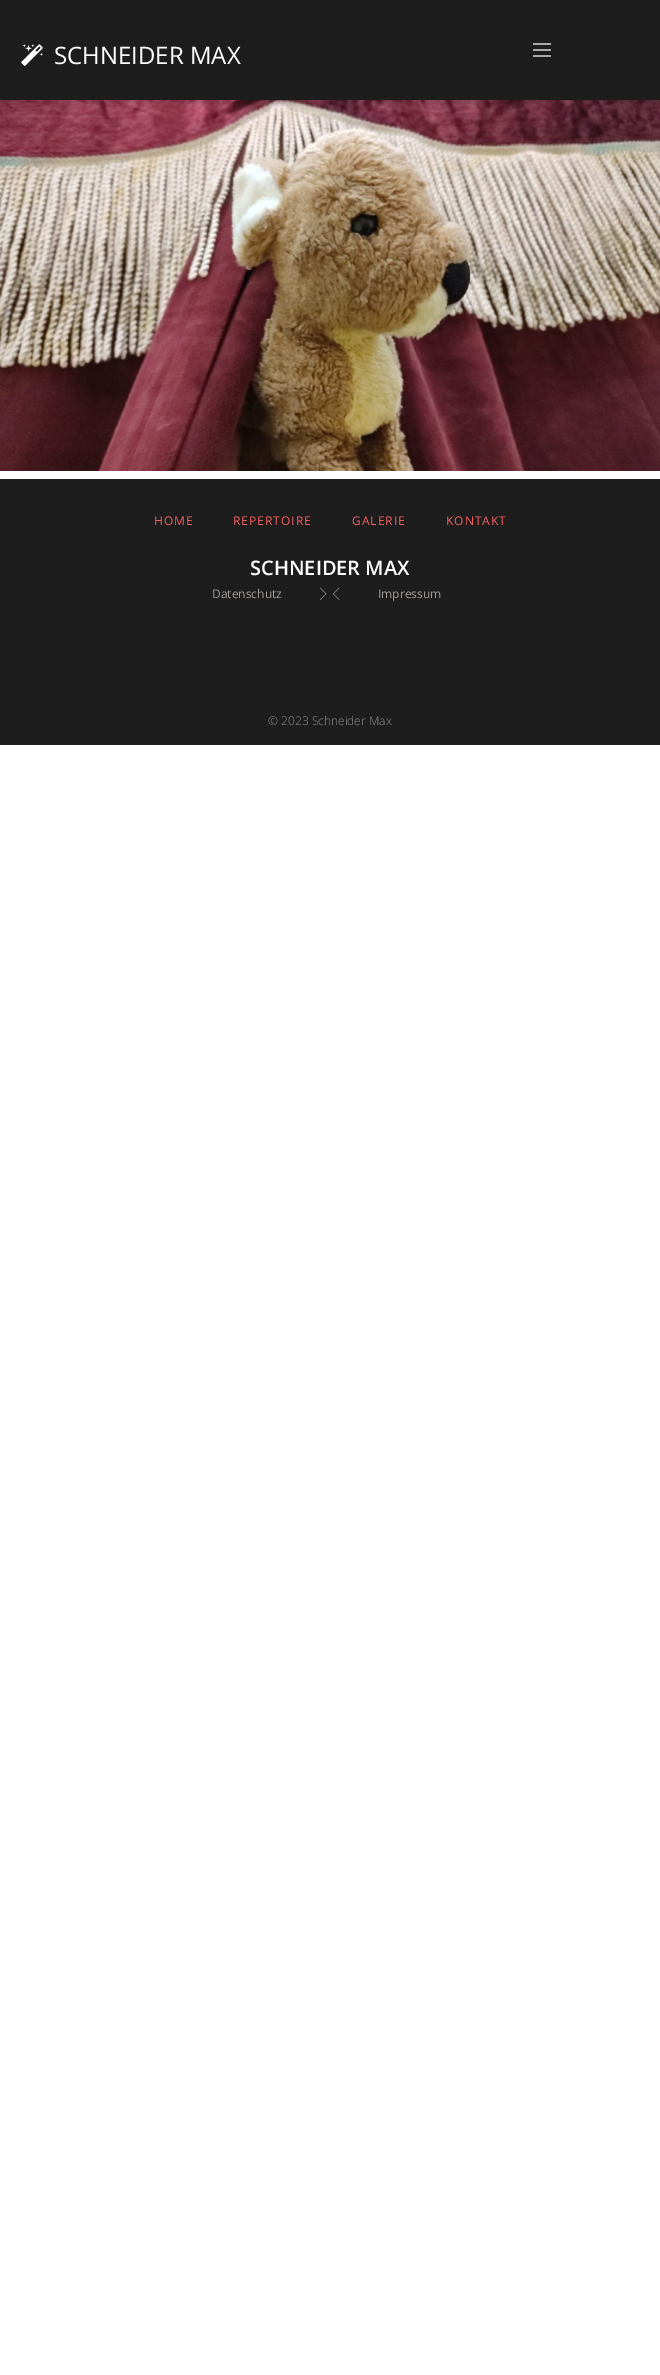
%!PS
<< /PageSize [660 2375] /PageUsesTransparency true >> setpagedevice
/rgb { 3 { 255 div 3 1 roll } repeat setrgbcolor } def
/font { [ exch dup neg 0 0 3 -1 roll 0 0 ] selectfont } def
/text { moveto show } def
/alpha { dup .setfillconstantalpha .setstrokeconstantalpha } def
/roundrect { 5 dict begin { /r /h /w /y /x } { exch def } forall
  x r add y moveto x w add y 2 copy h add r arct x w add y h add x 1 index r arct
  x y h add x y r arct x y 2 copy exch w add exch r arct closepath end } def
/shadow { 12 dict begin { /a /b /q /h /w /y /x } { exch def } forall gsave /was 0 def
  9 -2 -9 { dup b mul 4 div /e exch def 1 sub .425 mul 2.718 exch exp 1 add a .99 .min exch div /now exch def
    1 1 now sub 1 was sub div sub alpha /was now def
    w h .min e 2 mul add 0 gt { x e sub y e sub w e 2 mul add h e 2 mul add
      q e add b .6 mul add w h .min 2 div e add .min 0 .max roundrect fill } if } for grestore end } def
/picture { 5 dict begin { /h /w /y /x /name } { exch def } forall
  gsave x y translate w h scale
  w h 8 [w 0 0 h 0 0] name (r) file false 3 colorimage grestore end } def
0 .pushpdf14devicefilter
0 2375 translate 1 -1 scale
4 setmiterlimit
255 255 255 rgb
0 0 660 2375 rectfill
(img_02.rgb) 0 100 660 371 picture
0 0 0 rgb
0 0 660 100 0 5 0.3 shadow
29 29 29 rgb
0 0 660 100 rectfill
(img_01.rgb) 21 44 22 22 picture
170 170 170 rgb
533 43 18 2 1 roundrect fill
533 49 18 2 1 roundrect fill
533 55 18 2 1 roundrect fill
29 29 29 rgb
0 479 660 266 rectfill
(img_03.rgb) 320 587 7 13 picture
(img_04.rgb) 333 587 7 13 picture
/OpenSans-Regular 24 font
255 255 255 rgb
(SCHNEIDER MAX) 54 64 text
/OpenSans-Regular 12 font
246 96 97 rgb
154 525 moveto 1 0 (HOME) ashow
233 525 moveto 1 0 (REPERTOIRE) ashow
352 525 moveto 1 0 (GALERIE) ashow
446 525 moveto 1 0 (KONTAKT) ashow
/OpenSans-SemiBold 20 font
255 255 255 rgb
(SCHNEIDER MAX) 250 575 text
/OpenSans-Regular 12 font
162 155 153 rgb
(Datenschutz) 212 598 text
(Impressum) 378 598 text
/OpenSans-Light 12 font
142 142 142 rgb
(© 2023 Schneider Max) 268 725 text
.poppdf14devicefilter showpage
